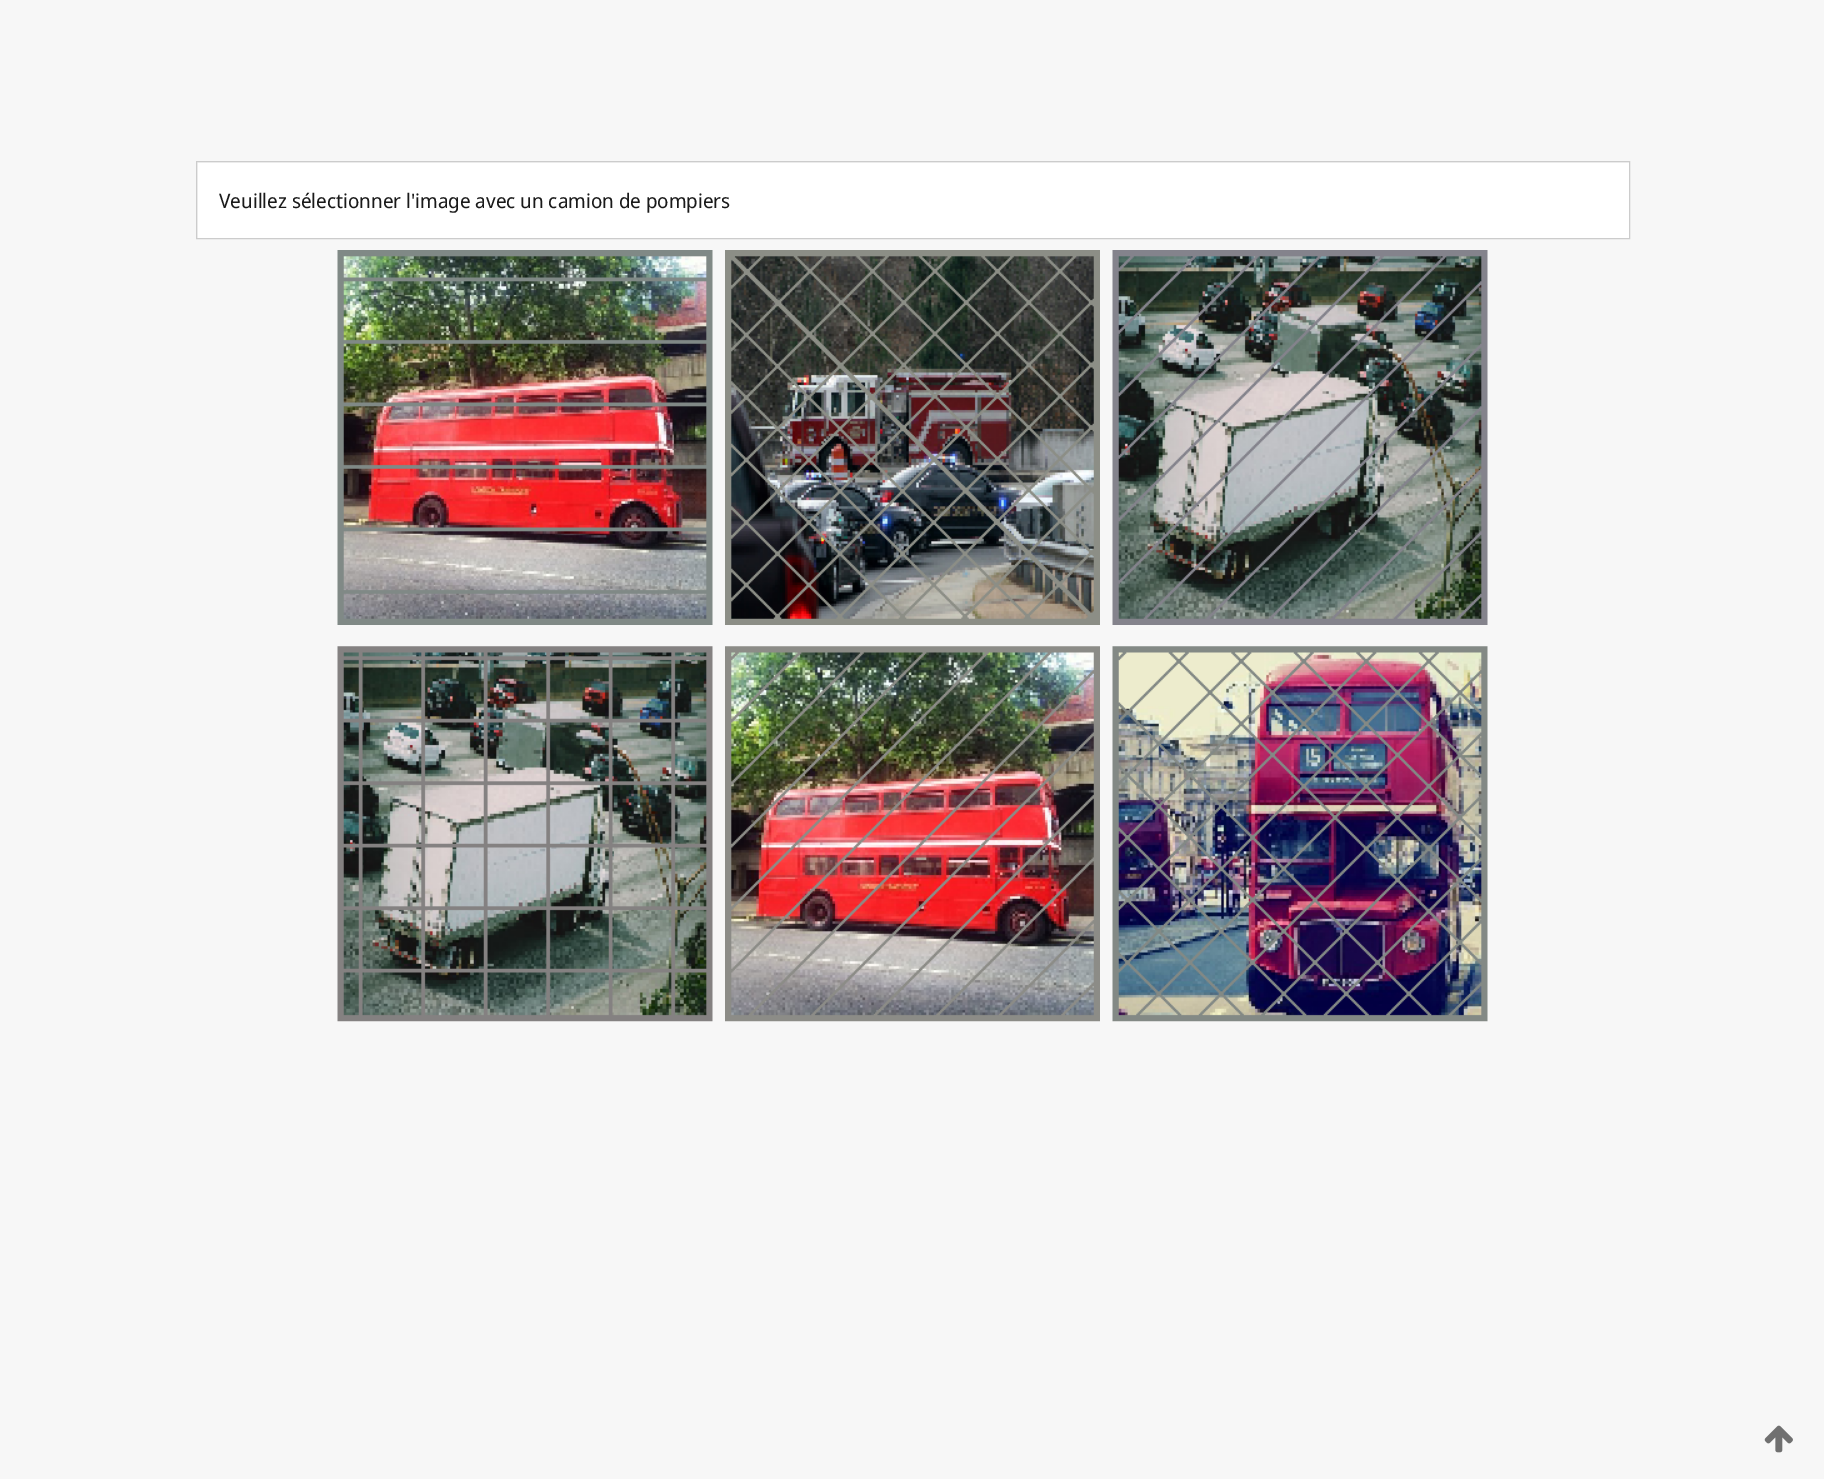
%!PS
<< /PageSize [1824 1479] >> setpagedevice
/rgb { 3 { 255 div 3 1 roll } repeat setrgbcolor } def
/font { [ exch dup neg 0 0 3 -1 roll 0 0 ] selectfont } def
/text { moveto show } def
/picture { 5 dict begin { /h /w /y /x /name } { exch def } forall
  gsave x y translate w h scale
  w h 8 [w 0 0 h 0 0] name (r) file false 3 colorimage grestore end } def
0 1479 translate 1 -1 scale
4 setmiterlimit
247 247 247 rgb
0 0 1824 1479 rectfill
255 255 255 rgb
198 163 1431 75 rectfill
204 204 204 rgb
196.5 161.5 1433 77 rectstroke
(img_01.rgb) 337 250 376 375 picture
(img_02.rgb) 725 250 375 375 picture
(img_03.rgb) 1112 250 376 375 picture
(img_04.rgb) 337 646 376 376 picture
(img_05.rgb) 725 646 375 376 picture
(img_06.rgb) 1112 646 376 376 picture
(img_07.rgb) 1764 1425 29 28 picture
/NotoSansDisplay-Regular 20 font
26 26 26 rgb
(Veuillez sélectionner l'image avec un camion de pompiers) 219 208 text
showpage
